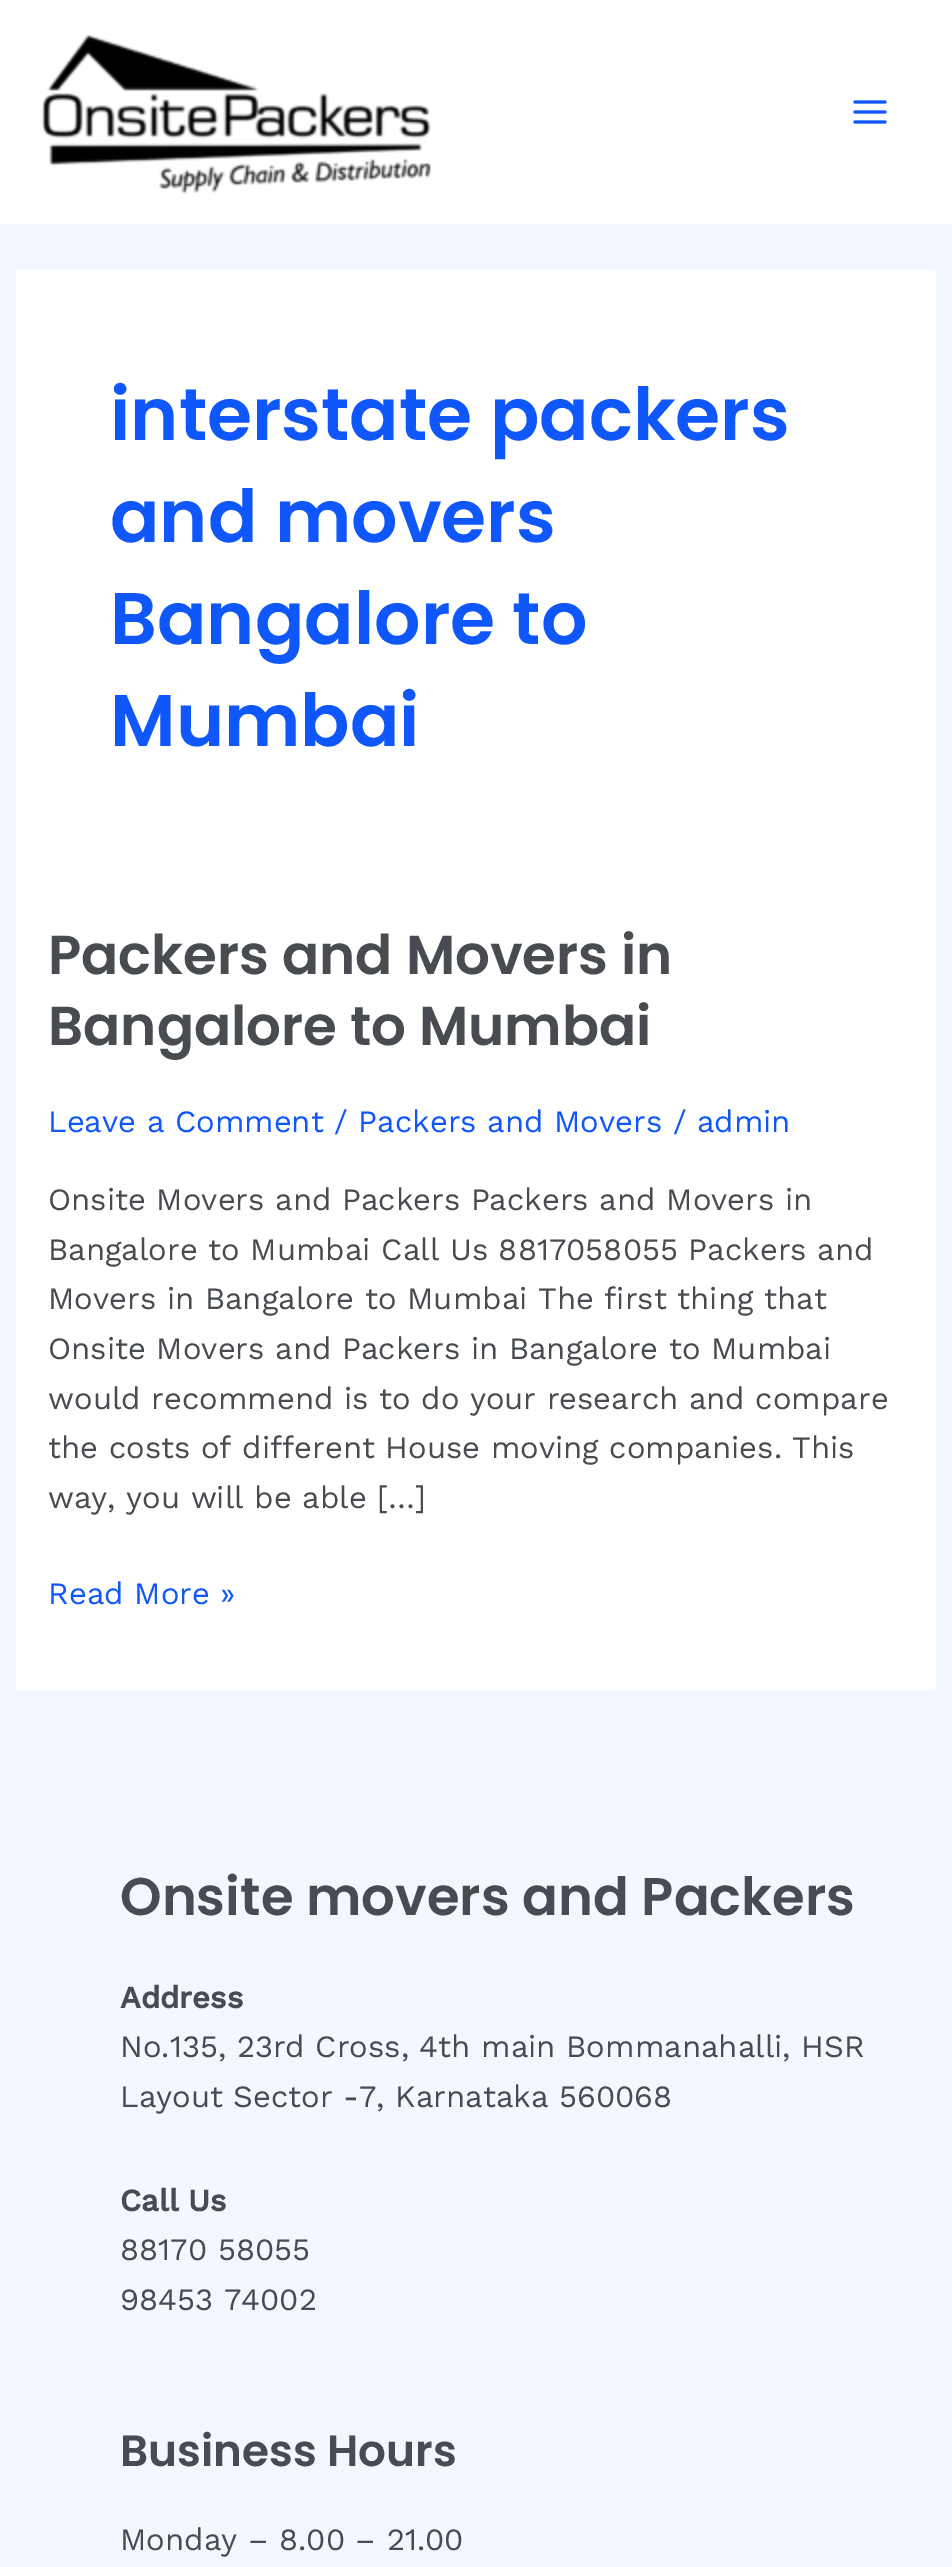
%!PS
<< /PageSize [952 2567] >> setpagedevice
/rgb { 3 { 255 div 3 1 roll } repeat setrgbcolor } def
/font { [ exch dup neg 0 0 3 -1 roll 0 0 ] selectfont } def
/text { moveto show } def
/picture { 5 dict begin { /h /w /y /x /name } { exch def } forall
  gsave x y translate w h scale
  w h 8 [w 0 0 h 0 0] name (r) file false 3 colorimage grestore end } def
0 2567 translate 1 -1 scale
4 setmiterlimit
243 247 255 rgb
0 0 952 2567 rectfill
255 255 255 rgb
0 0 952 224 rectfill
(img_01.rgb) 41 34 391 160 picture
(img_02.rgb) 853 100 34 24 picture
16 270 920 1420 rectfill
/Poppins-SemiBold 73 font
15 87 251 rgb
(interstate packers) 110 440 text
(and movers) 110 542 text
(Bangalore to) 110 644 text
(Mumbai) 110 746 text
/Poppins-SemiBold 54.75 font
72 76 80 rgb
(Packers and Movers in) 48 974 text
(Bangalore to Mumbai) 48 1045 text
/WorkSans-Regular 31 font
15 87 251 rgb
(Leave a Comment / Packers and Movers / admin) 48 1132 text
72 76 80 rgb
(Onsite Movers and Packers Packers and Movers in) 48 1210 text
(Bangalore to Mumbai Call Us 8817058055 Packers and) 48 1260 text
(Movers in Bangalore to Mumbai The first thing that) 48 1309 text
(Onsite Movers and Packers in Bangalore to Mumbai) 48 1359 text
(would recommend is to do your research and compare) 48 1409 text
(the costs of different House moving companies. This) 48 1458 text
(way, you will be able […]) 48 1508 text
15 87 251 rgb
(Read More ») 48 1604 text
/Poppins-SemiBold 52.9 font
72 76 80 rgb
(Onsite movers and Packers) 120 1915 text
/WorkSans-Bold 31 font
(Address) 120 2008 text
/WorkSans-Regular 31 font
(No.135, 23rd Cross, 4th main Bommanahalli, HSR) 120 2057 text
(Layout Sector -7, Karnataka 560068) 120 2107 text
/WorkSans-Bold 31 font
(Call Us) 120 2211 text
/WorkSans-Regular 31 font
(88170 58055) 120 2260 text
(98453 74002) 120 2310 text
/Poppins-SemiBold 43.75 font
(Business Hours) 120 2466 text
/WorkSans-Regular 31 font
(Monday – 8.00 – 21.00) 120 2550 text
showpage
